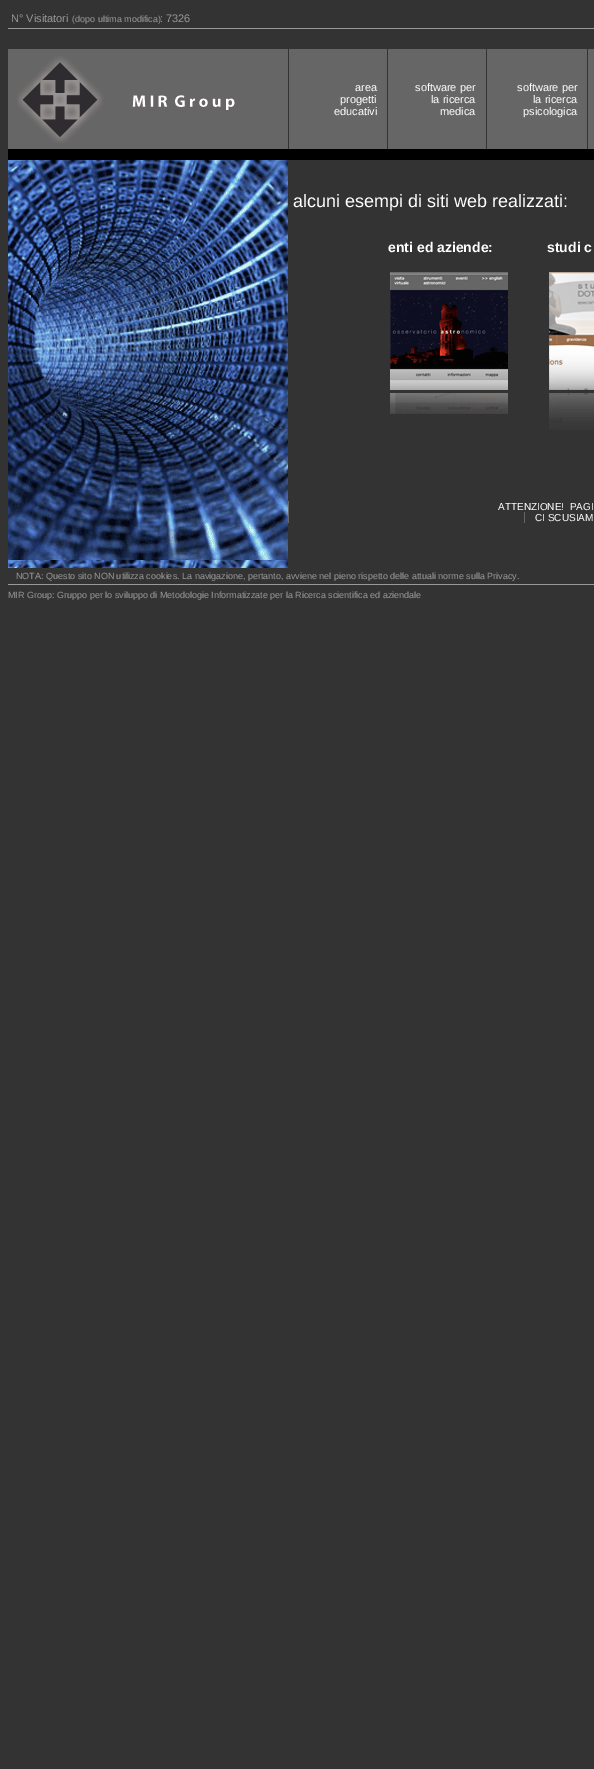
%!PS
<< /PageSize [594 1769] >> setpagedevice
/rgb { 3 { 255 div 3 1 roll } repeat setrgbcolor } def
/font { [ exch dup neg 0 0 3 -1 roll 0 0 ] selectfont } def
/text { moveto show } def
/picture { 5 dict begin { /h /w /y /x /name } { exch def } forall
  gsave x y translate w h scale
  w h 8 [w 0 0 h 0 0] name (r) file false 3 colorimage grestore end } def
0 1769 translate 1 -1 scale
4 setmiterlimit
51 51 51 rgb
0 0 594 1769 rectfill
153 153 153 rgb
8 28 586 1 rectfill
102 102 102 rgb
8 49 280 100 rectfill
(img_01.rgb) 17 56 218 87 picture
289 49 98 100 rectfill
388 49 98 100 rectfill
487 49 100 100 rectfill
588 49 6 100 rectfill
0 0 0 rgb
8 149 586 11 rectfill
(img_02.rgb) 8 160 280 408 picture
(img_03.rgb) 390 272 118 142 picture
(img_04.rgb) 549 272 45 158 picture
102 102 102 rgb
288 501 1 22 rectfill
524 512 1 11 rectfill
153 153 153 rgb
8 584 586 1 rectfill
/LiberationSans-Regular 11 font
(N° Visitatori) 11 22 text
/LiberationSans-Regular 9 font
(\(dopo ultima modifica\)) 72 22 text
/LiberationSans-Regular 11 font
(: 7326) 160 22 text
255 255 255 rgb
(area) 355 91 text
(progetti) 340 103 text
(educativi) 334 115 text
(software per) 415 91 text
(la ricerca) 431 103 text
(medica) 440 115 text
(software per) 517 91 text
(la ricerca) 533 103 text
(psicologica) 523 115 text
/LiberationSans-Regular 18 font
(alcuni esempi di siti web realizzati:) 293 207 text
/LiberationSans-Bold 14 font
(enti ed aziende:) 388 252 text
(studi c) 547 252 text
/LiberationSans-Regular 10 font
(ATTENZIONE!  PAGI) 498 510 text
(CI SCUSIAM) 535 521 text
/LiberationSans-Regular 9 font
153 153 153 rgb
(NOTA: Questo sito NON utilizza cookies. La navigazione, pertanto, avviene nel pieno rispetto delle attuali norme sulla Privacy.) 16 579 text
(MIR Group: Gruppo per lo sviluppo di Metodologie Informatizzate per la Ricerca scientifica ed aziendale) 8 598 text
showpage
